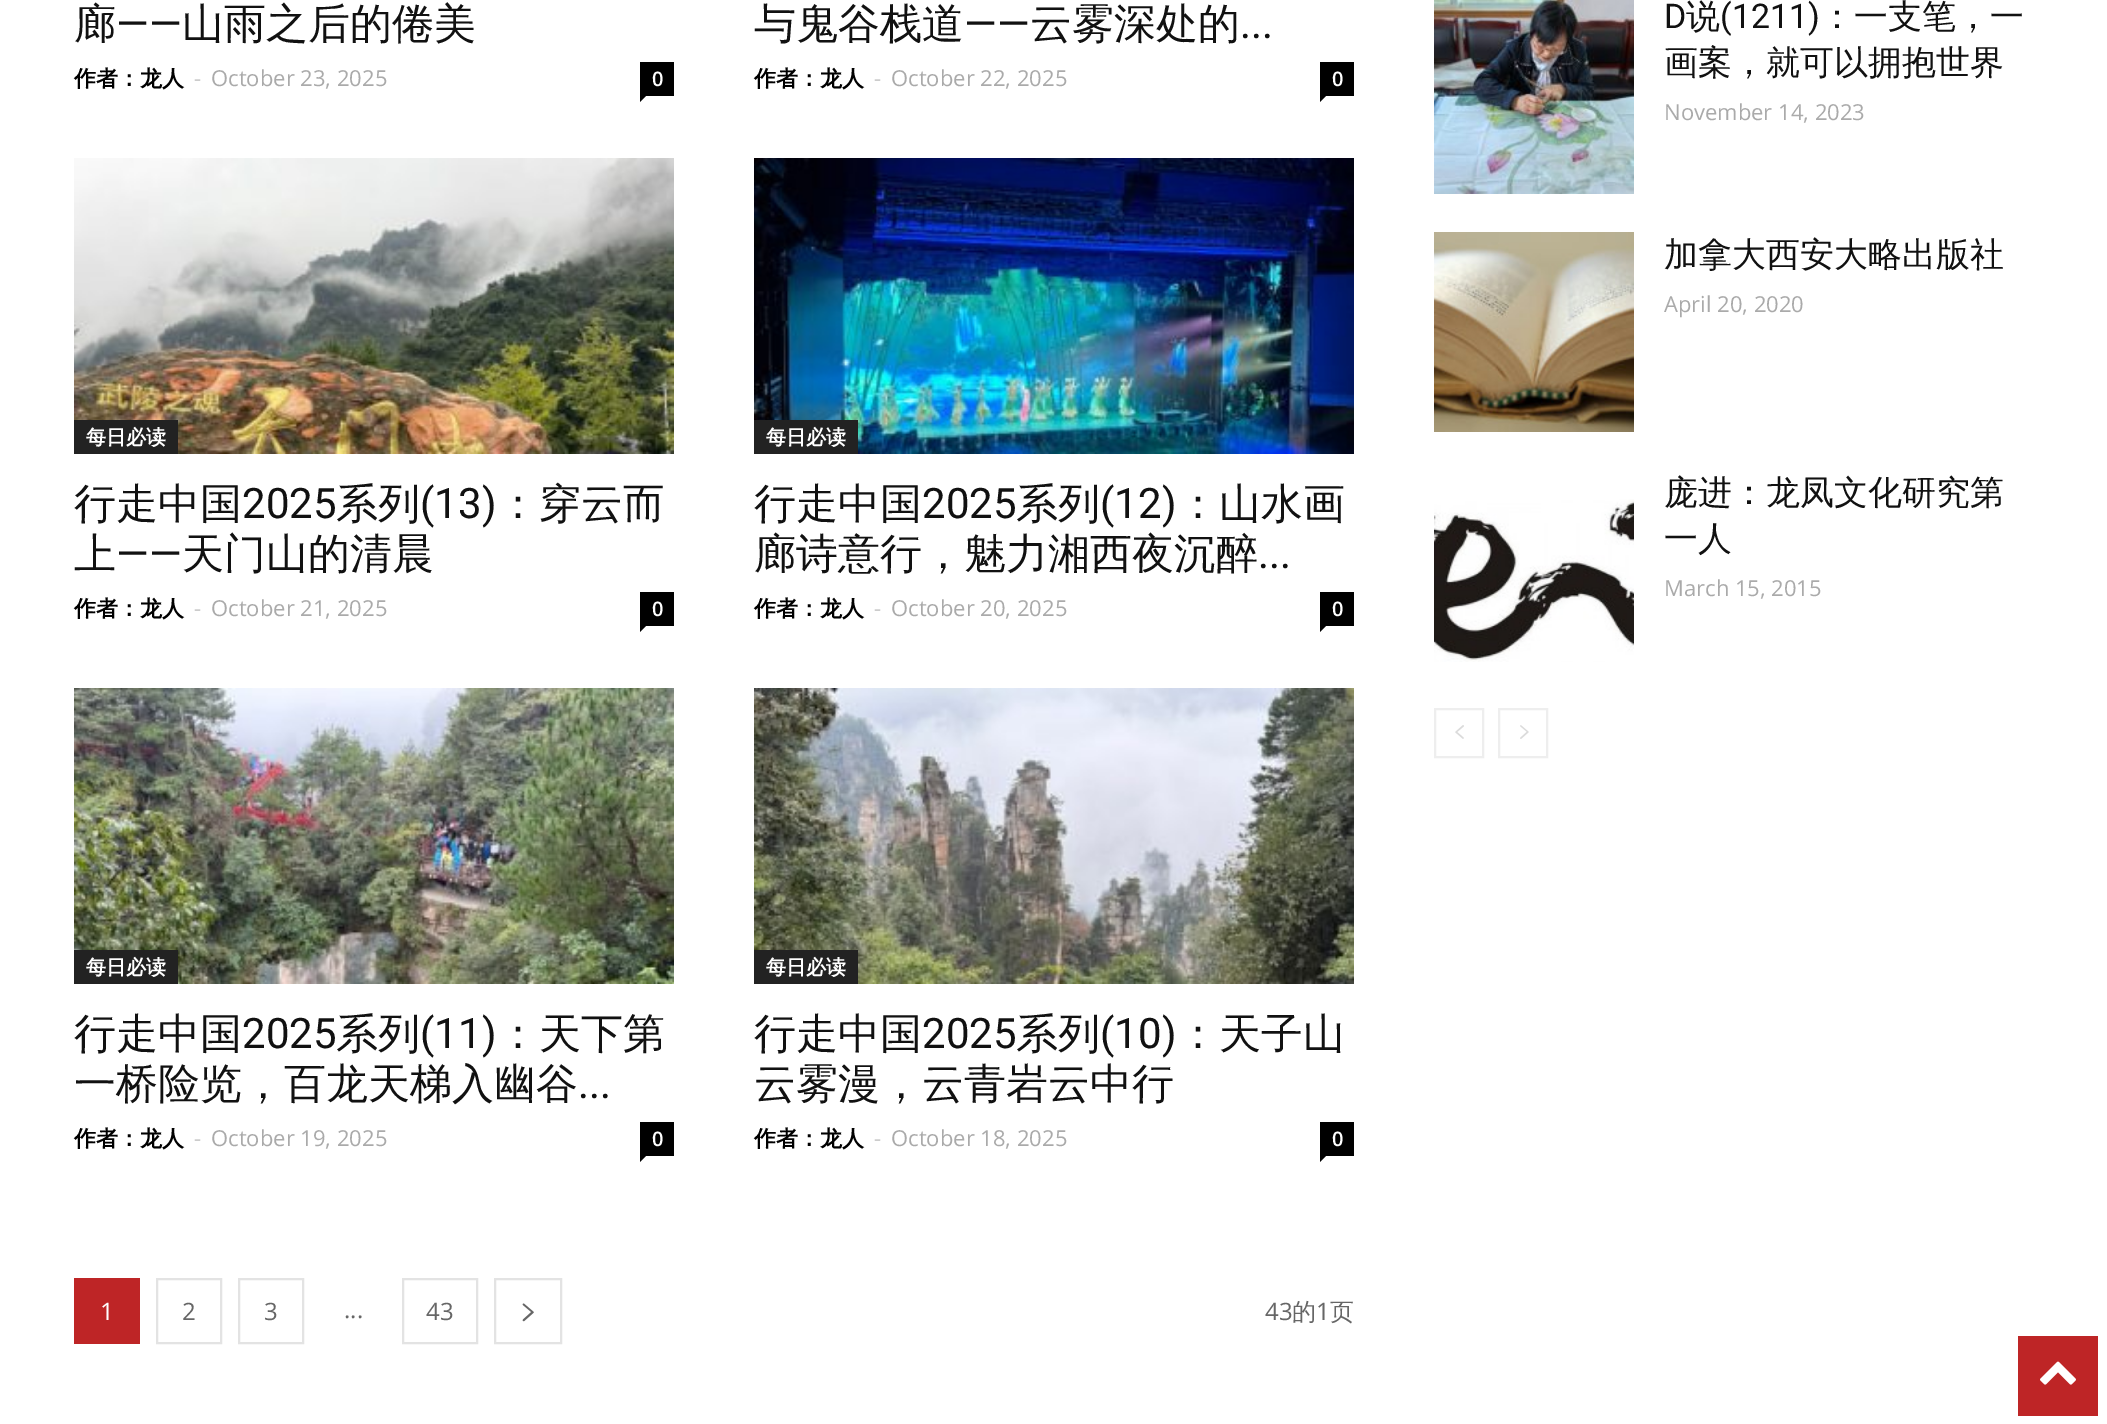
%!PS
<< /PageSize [2107 1424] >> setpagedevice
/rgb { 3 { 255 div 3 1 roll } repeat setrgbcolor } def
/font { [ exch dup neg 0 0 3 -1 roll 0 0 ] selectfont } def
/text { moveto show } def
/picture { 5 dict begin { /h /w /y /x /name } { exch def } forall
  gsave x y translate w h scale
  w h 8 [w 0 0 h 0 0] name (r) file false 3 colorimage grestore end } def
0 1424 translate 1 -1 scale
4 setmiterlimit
255 255 255 rgb
0 0 2107 1424 rectfill
0 0 0 rgb
640 62 34 34 rectfill
640 96 moveto 6 0 rlineto -6 6 rlineto closepath fill
1320 62 34 34 rectfill
1320 96 moveto 6 0 rlineto -6 6 rlineto closepath fill
(img_01.rgb) 74 158 600 296 picture
34 34 34 rgb
74 420 104 34 rectfill
0 0 0 rgb
640 592 34 34 rectfill
640 626 moveto 6 0 rlineto -6 6 rlineto closepath fill
(img_02.rgb) 754 158 600 296 picture
34 34 34 rgb
754 420 104 34 rectfill
0 0 0 rgb
1320 592 34 34 rectfill
1320 626 moveto 6 0 rlineto -6 6 rlineto closepath fill
(img_03.rgb) 74 688 600 296 picture
34 34 34 rgb
74 950 104 34 rectfill
0 0 0 rgb
640 1122 34 34 rectfill
640 1156 moveto 6 0 rlineto -6 6 rlineto closepath fill
(img_04.rgb) 754 688 600 296 picture
34 34 34 rgb
754 950 104 34 rectfill
0 0 0 rgb
1320 1122 34 34 rectfill
1320 1156 moveto 6 0 rlineto -6 6 rlineto closepath fill
190 37 38 rgb
74 1278 66 66 rectfill
227 227 227 rgb
2 setlinewidth
157 1279 64 64 rectstroke
239 1279 64 64 rectstroke
403 1279 74 64 rectstroke
495 1279 66 64 rectstroke
(img_05.rgb) 522 1303 12 19 picture
(img_06.rgb) 1434 0 200 194 picture
(img_07.rgb) 1434 232 200 200 picture
(img_08.rgb) 1434 499 200 163 picture
238 238 238 rgb
1435 709 48 48 rectstroke
(img_09.rgb) 1455 725 9 14 picture
1499 709 48 48 rectstroke
(img_10.rgb) 1520 725 9 14 picture
190 37 38 rgb
2018 1336 80 80 rectfill
(img_11.rgb) 2040 1361 36 24 picture
/WenQuanYiZenHei-Medium 42 font
17 17 17 rgb
(廊) 74 38 text
/Roboto-Regular 42 font
(——) 116 38 text
/WenQuanYiZenHei-Medium 42 font
(山雨之后的倦美) 182 38 text
/WenQuanYiZenHei-Bold 22 font
0 0 0 rgb
(作者：龙人) 74 86 text
/OpenSans-Regular 22 font
204 204 204 rgb
(-) 194 86 text
170 170 170 rgb
(October 23, 2025) 211 86 text
/OpenSans-SemiBold 20 font
255 255 255 rgb
(0) 652 86 text
/WenQuanYiZenHei-Medium 42 font
17 17 17 rgb
(与鬼谷栈道) 754 38 text
/Roboto-Regular 42 font
(——) 964 38 text
/WenQuanYiZenHei-Medium 42 font
(云雾深处的) 1030 38 text
/Roboto-Regular 42 font
(...) 1240 38 text
/WenQuanYiZenHei-Bold 22 font
0 0 0 rgb
(作者：龙人) 754 86 text
/OpenSans-Regular 22 font
204 204 204 rgb
(-) 874 86 text
170 170 170 rgb
(October 22, 2025) 891 86 text
/OpenSans-SemiBold 20 font
255 255 255 rgb
(0) 1332 86 text
/WenQuanYiZenHei-Bold 20 font
(每日必读) 86 444 text
/WenQuanYiZenHei-Medium 42 font
17 17 17 rgb
(行走中国) 74 518 text
/Roboto-Regular 42 font
(2025) 242 518 text
/WenQuanYiZenHei-Medium 42 font
(系列) 336 518 text
/Roboto-Regular 42 font
(\(13\)) 420 518 text
/WenQuanYiZenHei-Medium 42 font
(：穿云而) 497 518 text
(上) 74 568 text
/Roboto-Regular 42 font
(——) 116 568 text
/WenQuanYiZenHei-Medium 42 font
(天门山的清晨) 182 568 text
/WenQuanYiZenHei-Bold 22 font
0 0 0 rgb
(作者：龙人) 74 616 text
/OpenSans-Regular 22 font
204 204 204 rgb
(-) 194 616 text
170 170 170 rgb
(October 21, 2025) 211 616 text
/OpenSans-SemiBold 20 font
255 255 255 rgb
(0) 652 616 text
/WenQuanYiZenHei-Bold 20 font
(每日必读) 766 444 text
/WenQuanYiZenHei-Medium 42 font
17 17 17 rgb
(行走中国) 754 518 text
/Roboto-Regular 42 font
(2025) 922 518 text
/WenQuanYiZenHei-Medium 42 font
(系列) 1016 518 text
/Roboto-Regular 42 font
(\(12\)) 1100 518 text
/WenQuanYiZenHei-Medium 42 font
(：山水画) 1177 518 text
(廊诗意行，魅力湘西夜沉醉) 754 568 text
/Roboto-Regular 42 font
(...) 1258 568 text
/WenQuanYiZenHei-Bold 22 font
0 0 0 rgb
(作者：龙人) 754 616 text
/OpenSans-Regular 22 font
204 204 204 rgb
(-) 874 616 text
170 170 170 rgb
(October 20, 2025) 891 616 text
/OpenSans-SemiBold 20 font
255 255 255 rgb
(0) 1332 616 text
/WenQuanYiZenHei-Bold 20 font
(每日必读) 86 974 text
/WenQuanYiZenHei-Medium 42 font
17 17 17 rgb
(行走中国) 74 1048 text
/Roboto-Regular 42 font
(2025) 242 1048 text
/WenQuanYiZenHei-Medium 42 font
(系列) 336 1048 text
/Roboto-Regular 42 font
(\(11\)) 420 1048 text
/WenQuanYiZenHei-Medium 42 font
(：天下第) 497 1048 text
(一桥险览，百龙天梯入幽谷) 74 1098 text
/Roboto-Regular 42 font
(...) 578 1098 text
/WenQuanYiZenHei-Bold 22 font
0 0 0 rgb
(作者：龙人) 74 1146 text
/OpenSans-Regular 22 font
204 204 204 rgb
(-) 194 1146 text
170 170 170 rgb
(October 19, 2025) 211 1146 text
/OpenSans-SemiBold 20 font
255 255 255 rgb
(0) 652 1146 text
/WenQuanYiZenHei-Bold 20 font
(每日必读) 766 974 text
/WenQuanYiZenHei-Medium 42 font
17 17 17 rgb
(行走中国) 754 1048 text
/Roboto-Regular 42 font
(2025) 922 1048 text
/WenQuanYiZenHei-Medium 42 font
(系列) 1016 1048 text
/Roboto-Regular 42 font
(\(10\)) 1100 1048 text
/WenQuanYiZenHei-Medium 42 font
(：天子山) 1177 1048 text
(云雾漫，云青岩云中行) 754 1098 text
/WenQuanYiZenHei-Bold 22 font
0 0 0 rgb
(作者：龙人) 754 1146 text
/OpenSans-Regular 22 font
204 204 204 rgb
(-) 874 1146 text
170 170 170 rgb
(October 18, 2025) 891 1146 text
/OpenSans-SemiBold 20 font
255 255 255 rgb
(0) 1332 1146 text
/OpenSans-Regular 24 font
(1) 100 1320 text
102 102 102 rgb
(2) 182 1320 text
(3) 264 1320 text
(...) 344 1318 text
(43) 426 1320 text
(43) 1265 1320 text
/WenQuanYiZenHei-Medium 24 font
(的) 1292 1320 text
/OpenSans-Regular 24 font
(1) 1316 1320 text
/WenQuanYiZenHei-Medium 24 font
(页) 1330 1320 text
/Roboto-Regular 34 font
17 17 17 rgb
(D) 1664 28 text
/WenQuanYiZenHei-Medium 34 font
(说) 1686 28 text
/Roboto-Regular 34 font
(\(1211\)) 1720 28 text
/WenQuanYiZenHei-Medium 34 font
(：一支笔，一) 1820 28 text
(画案，就可以拥抱世界) 1664 74 text
/OpenSans-Regular 22 font
170 170 170 rgb
(November 14, 2023) 1664 120 text
/WenQuanYiZenHei-Medium 34 font
17 17 17 rgb
(加拿大西安大略出版社) 1664 266 text
/OpenSans-Regular 22 font
170 170 170 rgb
(April 20, 2020) 1664 312 text
/WenQuanYiZenHei-Medium 34 font
17 17 17 rgb
(庞进：龙凤文化研究第) 1664 504 text
(一人) 1664 550 text
/OpenSans-Regular 22 font
170 170 170 rgb
(March 15, 2015) 1664 596 text
showpage
